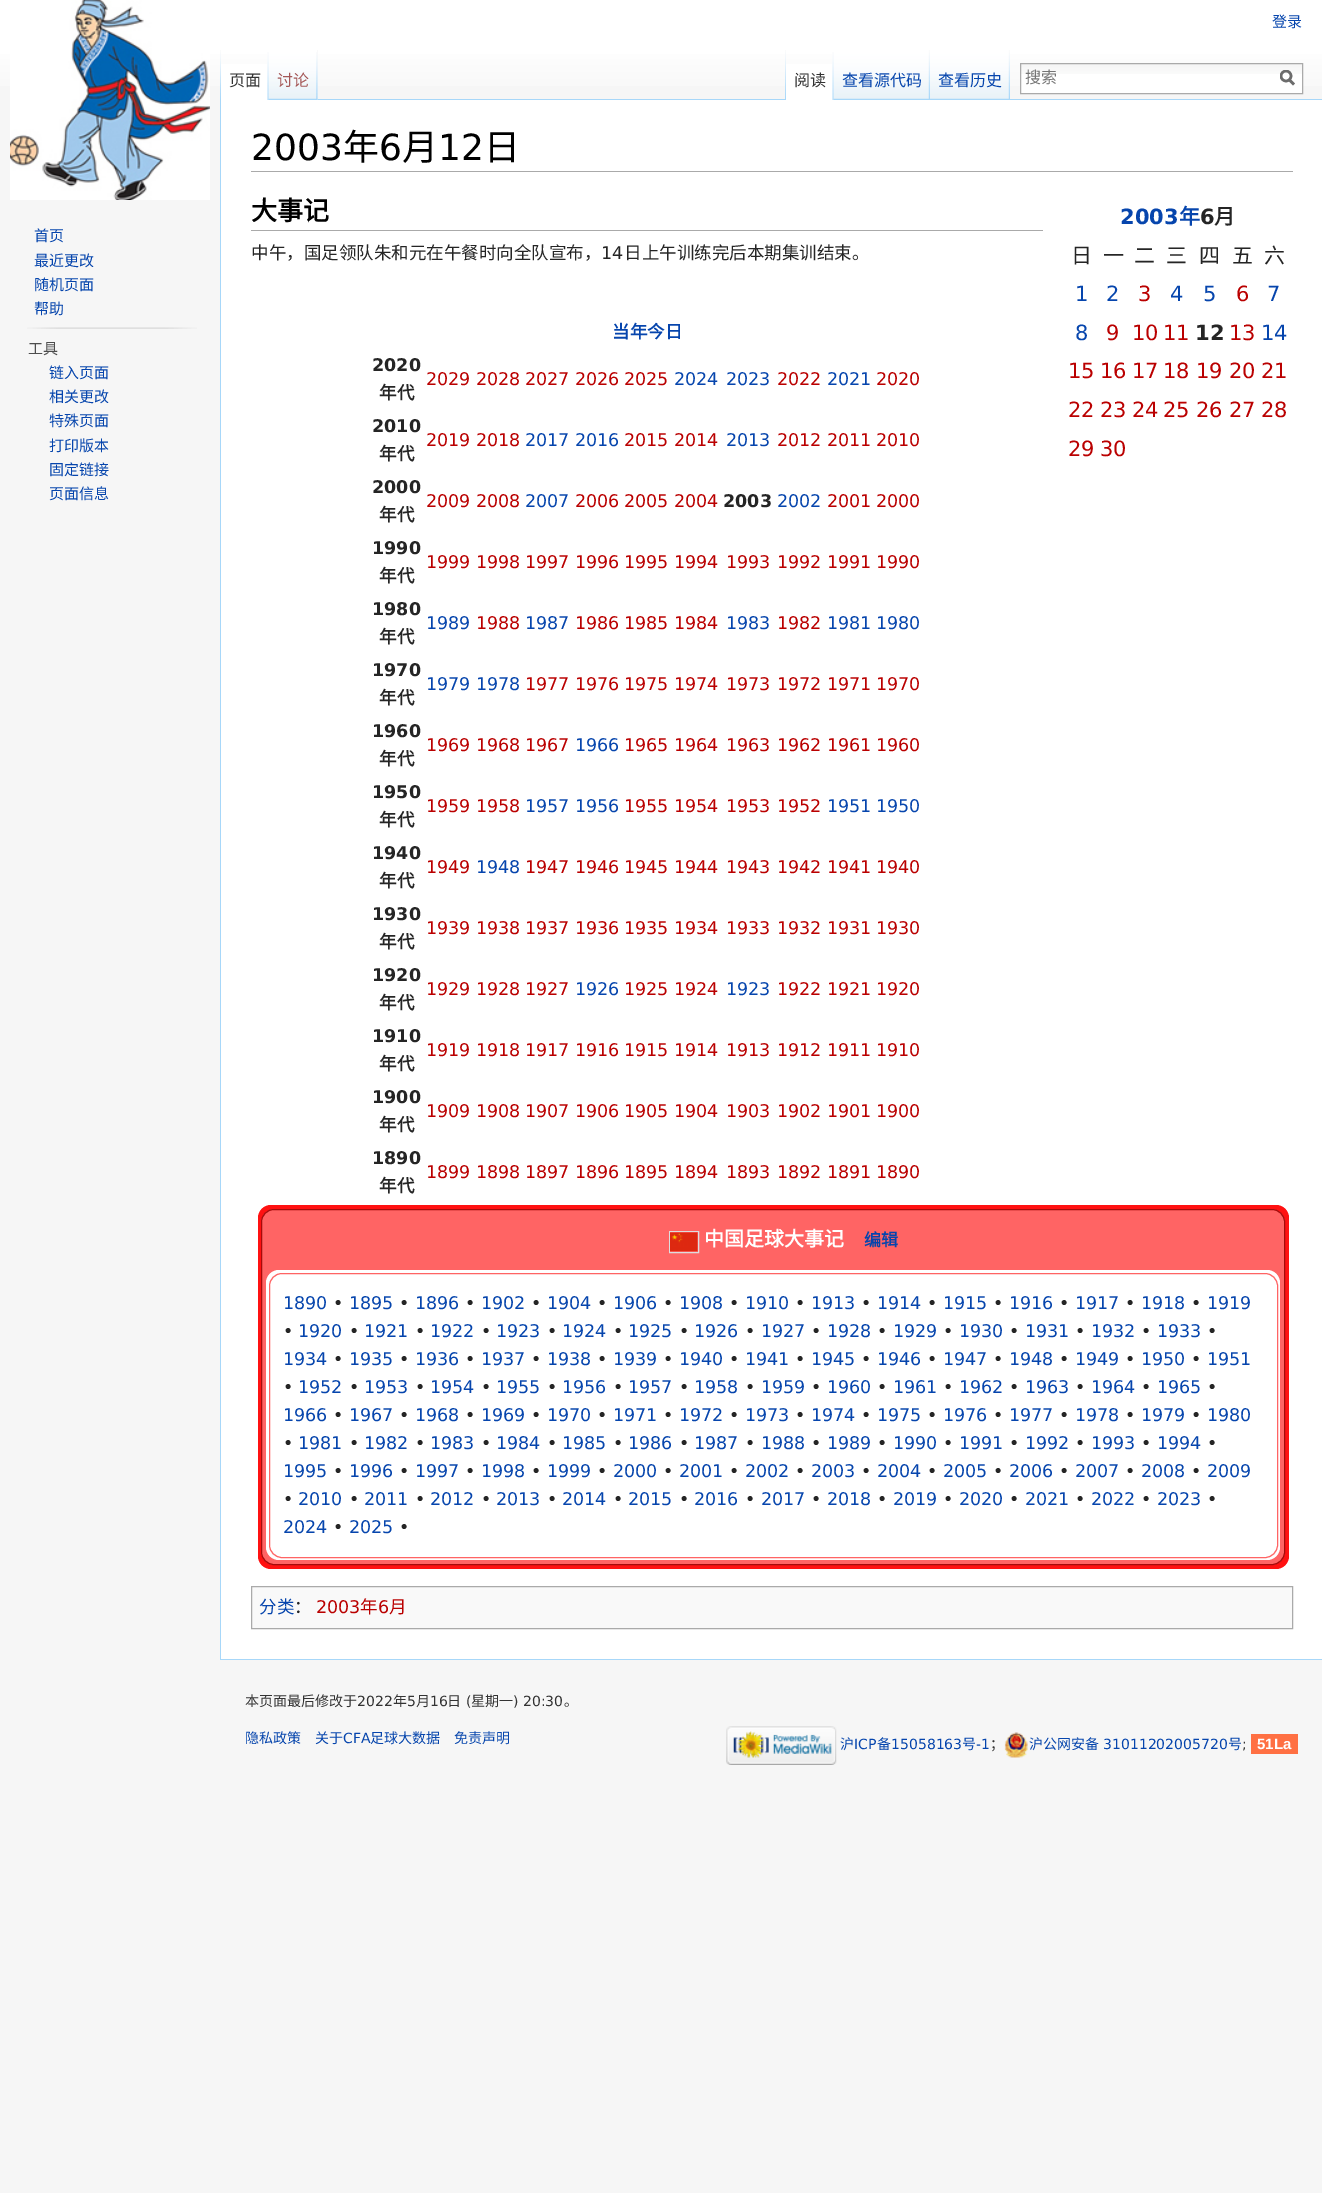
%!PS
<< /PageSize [1322 2193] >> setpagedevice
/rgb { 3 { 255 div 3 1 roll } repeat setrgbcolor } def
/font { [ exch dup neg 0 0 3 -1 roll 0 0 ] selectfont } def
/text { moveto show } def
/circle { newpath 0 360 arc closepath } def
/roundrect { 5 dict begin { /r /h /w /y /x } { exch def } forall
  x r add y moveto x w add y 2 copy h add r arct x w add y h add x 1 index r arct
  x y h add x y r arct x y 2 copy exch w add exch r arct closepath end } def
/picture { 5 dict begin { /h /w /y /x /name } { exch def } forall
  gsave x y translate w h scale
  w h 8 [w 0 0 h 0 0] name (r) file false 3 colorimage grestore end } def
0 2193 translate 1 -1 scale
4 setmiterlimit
246 246 246 rgb
0 0 1322 2193 rectfill
gsave 0 0 moveto 1322 0 rlineto 0 86 rlineto -1322 0 rlineto closepath clip newpath
<< /ShadingType 2 /ColorSpace /DeviceRGB /Coords [661 0 661 100] /Extend [true true] /Function << /FunctionType 3 /Domain [0 1] /Functions [<< /FunctionType 2 /Domain [0 1] /C0 [1 1 1] /C1 [1 1 1] /N 1 >> << /FunctionType 2 /Domain [0 1] /C0 [1 1 1] /C1 [0.965 0.965 0.965] /N 1 >>] /Bounds [0.5] /Encode [0 1 0 1] >> >> shfill grestore
(img_01.rgb) 220 50 1 49 picture
255 255 255 rgb
221 64 48 36 rectfill
(img_02.rgb) 267 52 2 48 picture
243 243 243 rgb
317 50 1 50 rectfill
(img_03.rgb) 268 50 50 50 picture
(img_04.rgb) 316 52 2 48 picture
(img_01.rgb) 785 50 1 49 picture
167 215 249 rgb
318 99 1004 1 rectfill
255 255 255 rgb
786 64 48 36 rectfill
(img_02.rgb) 832 52 2 48 picture
(img_05.rgb) 833 50 97 50 picture
(img_06.rgb) 928 50 2 49 picture
(img_07.rgb) 930 50 80 50 picture
(img_06.rgb) 1008 50 2 49 picture
1021 74 281 19 rectfill
(img_08.rgb) 1021 64 281 10 picture
170 170 170 rgb
1020.5 63.5 282 30 rectstroke
108 108 108 rgb
2.5 setlinewidth
1294 84.5 moveto -5 -5 rlineto stroke
gsave
1280 70 15 16 rectclip
1286 76 5 circle stroke
grestore
(img_09.rgb) 10 0 200 200 picture
(img_10.rgb) 27 327 170 2 picture
255 255 255 rgb
221 100 1101 1559 rectfill
167 215 249 rgb
220 1659 1102 1 rectfill
220 99 1 1561 rectfill
170 170 170 rgb
251 171 1042 1 rectfill
251 230 792 1 rectfill
255 17 17 rgb
258 1205 1031 364 13 roundrect fill
255 100 100 rgb
261.5 1209.5 1023 355 12.5 roundrect gsave fill grestore
166 11 11 rgb
1 setlinewidth
stroke
221 221 221 rgb
669.5 1231.5 29 21 rectstroke
(img_11.rgb) 670 1232 28 20 picture
255 255 255 rgb
266 1270 1014 290 13 roundrect fill
255 100 100 rgb
269.5 1273.5 1008 284 12.5 roundrect stroke
249 249 249 rgb
251.5 1586.5 moveto 1041 0 rlineto 0 42 rlineto -1041 0 rlineto closepath gsave fill grestore
170 170 170 rgb
stroke
(img_12.rgb) 726 1726 111 39 picture
(img_13.rgb) 1004 1732 24 26 picture
255 112 67 rgb
1251 1734 47 20 rectfill
/NotoSansCJKSC-Regular 15 font
6 69 173 rgb
(登录) 1272 27 text
/NotoSansCJKSC-Regular 16 font
51 51 51 rgb
(页面) 229 86 text
165 88 88 rgb
(讨论) 277 86 text
51 51 51 rgb
(阅读) 794 86 text
6 69 173 rgb
(查看源代码) 842 86 text
(查看历史) 938 86 text
117 117 117 rgb
(搜索) 1025 83 text
/NotoSansCJKSC-Regular 15 font
6 69 173 rgb
(首页) 34 241 text
(最近更改) 34 266 text
(随机页面) 34 290 text
(帮助) 34 314 text
77 77 77 rgb
(工具) 28 354 text
6 69 173 rgb
(链入页面) 49 378 text
(相关更改) 49 402 text
(特殊页面) 49 426 text
(打印版本) 49 451 text
(固定链接) 49 475 text
(页面信息) 49 499 text
/DejaVuSans-Regular 36 font
0 0 0 rgb
(2003) 251 160 text
/NotoSansCJKSC-Regular 36 font
(年) 343 160 text
/DejaVuSans-Regular 36 font
(6) 379 160 text
/NotoSansCJKSC-Regular 36 font
(月) 402 160 text
/DejaVuSans-Regular 36 font
(12) 438 160 text
/NotoSansCJKSC-Regular 36 font
(日) 484 160 text
/NotoSansCJKSC-Bold 26 font
(大事记) 251 220 text
/DejaVuSans-Bold 21 font
6 69 173 rgb
(2003) 1120 224 text
/NotoSansCJKSC-Bold 21 font
(年) 1179 224 text
/DejaVuSans-Bold 21 font
37 37 37 rgb
(6) 1200 224 text
/NotoSansCJKSC-Bold 21 font
(月) 1214 224 text
/NotoSansCJKSC-Regular 21 font
(日) 1071 263 text
(一) 1103 263 text
(二) 1134 263 text
(三) 1166 263 text
(四) 1199 263 text
(五) 1232 263 text
(六) 1264 263 text
/DejaVuSans-Regular 21 font
6 69 173 rgb
(1) 1075 301 text
(2) 1106 301 text
186 0 0 rgb
(3) 1138 301 text
6 69 173 rgb
(4) 1170 301 text
(5) 1203 301 text
186 0 0 rgb
(6) 1236 301 text
6 69 173 rgb
(7) 1267 301 text
(8) 1075 340 text
186 0 0 rgb
(9) 1106 340 text
(10) 1132 340 text
(11) 1163 340 text
/DejaVuSans-Bold 21 font
37 37 37 rgb
(12) 1195 340 text
/DejaVuSans-Regular 21 font
186 0 0 rgb
(13) 1229 340 text
6 69 173 rgb
(14) 1261 340 text
186 0 0 rgb
(15) 1068 378 text
(16) 1100 378 text
(17) 1132 378 text
(18) 1163 378 text
(19) 1196 378 text
(20) 1229 378 text
(21) 1261 378 text
(22) 1068 417 text
(23) 1100 417 text
(24) 1132 417 text
(25) 1163 417 text
(26) 1196 417 text
(27) 1229 417 text
(28) 1261 417 text
(29) 1068 456 text
(30) 1100 456 text
/NotoSansCJKSC-Regular 17.5 font
37 37 37 rgb
(中午，国足领队朱和元在午餐时向全队宣布，) 251 259 text
/DejaVuSans-Regular 17.5 font
(14) 601 259 text
/NotoSansCJKSC-Regular 17.5 font
(日上午训练完后本期集训结束。) 624 259 text
/NotoSansCJKSC-Bold 17.5 font
6 69 173 rgb
(当年今日) 612 338 text
/DejaVuSans-Bold 17.5 font
37 37 37 rgb
(2020) 372 371 text
/NotoSansCJKSC-Bold 17.5 font
(年代) 379 399 text
/DejaVuSans-Regular 17.5 font
186 0 0 rgb
(2029) 426 385 text
(2028) 476 385 text
(2027) 525 385 text
(2026) 575 385 text
(2025) 624 385 text
6 69 173 rgb
(2024) 674 385 text
(2023) 726 385 text
186 0 0 rgb
(2022) 777 385 text
6 69 173 rgb
(2021) 827 385 text
186 0 0 rgb
(2020) 876 385 text
/DejaVuSans-Bold 17.5 font
37 37 37 rgb
(2010) 372 432 text
/NotoSansCJKSC-Bold 17.5 font
(年代) 379 460 text
/DejaVuSans-Regular 17.5 font
186 0 0 rgb
(2019) 426 446 text
(2018) 476 446 text
6 69 173 rgb
(2017) 525 446 text
(2016) 575 446 text
186 0 0 rgb
(2015) 624 446 text
(2014) 674 446 text
6 69 173 rgb
(2013) 726 446 text
186 0 0 rgb
(2012) 777 446 text
(2011) 827 446 text
(2010) 876 446 text
/DejaVuSans-Bold 17.5 font
37 37 37 rgb
(2000) 372 493 text
/NotoSansCJKSC-Bold 17.5 font
(年代) 379 521 text
/DejaVuSans-Regular 17.5 font
186 0 0 rgb
(2009) 426 507 text
(2008) 476 507 text
6 69 173 rgb
(2007) 525 507 text
186 0 0 rgb
(2006) 575 507 text
(2005) 624 507 text
(2004) 674 507 text
/DejaVuSans-Bold 17.5 font
37 37 37 rgb
(2003) 723 507 text
/DejaVuSans-Regular 17.5 font
6 69 173 rgb
(2002) 777 507 text
186 0 0 rgb
(2001) 827 507 text
(2000) 876 507 text
/DejaVuSans-Bold 17.5 font
37 37 37 rgb
(1990) 372 554 text
/NotoSansCJKSC-Bold 17.5 font
(年代) 379 582 text
/DejaVuSans-Regular 17.5 font
186 0 0 rgb
(1999) 426 568 text
(1998) 476 568 text
(1997) 525 568 text
(1996) 575 568 text
(1995) 624 568 text
(1994) 674 568 text
(1993) 726 568 text
(1992) 777 568 text
(1991) 827 568 text
(1990) 876 568 text
/DejaVuSans-Bold 17.5 font
37 37 37 rgb
(1980) 372 615 text
/NotoSansCJKSC-Bold 17.5 font
(年代) 379 643 text
/DejaVuSans-Regular 17.5 font
6 69 173 rgb
(1989) 426 629 text
186 0 0 rgb
(1988) 476 629 text
6 69 173 rgb
(1987) 525 629 text
186 0 0 rgb
(1986) 575 629 text
(1985) 624 629 text
(1984) 674 629 text
6 69 173 rgb
(1983) 726 629 text
186 0 0 rgb
(1982) 777 629 text
6 69 173 rgb
(1981) 827 629 text
(1980) 876 629 text
/DejaVuSans-Bold 17.5 font
37 37 37 rgb
(1970) 372 676 text
/NotoSansCJKSC-Bold 17.5 font
(年代) 379 704 text
/DejaVuSans-Regular 17.5 font
6 69 173 rgb
(1979) 426 690 text
(1978) 476 690 text
186 0 0 rgb
(1977) 525 690 text
(1976) 575 690 text
(1975) 624 690 text
(1974) 674 690 text
(1973) 726 690 text
(1972) 777 690 text
(1971) 827 690 text
(1970) 876 690 text
/DejaVuSans-Bold 17.5 font
37 37 37 rgb
(1960) 372 737 text
/NotoSansCJKSC-Bold 17.5 font
(年代) 379 765 text
/DejaVuSans-Regular 17.5 font
186 0 0 rgb
(1969) 426 751 text
(1968) 476 751 text
(1967) 525 751 text
6 69 173 rgb
(1966) 575 751 text
186 0 0 rgb
(1965) 624 751 text
(1964) 674 751 text
(1963) 726 751 text
(1962) 777 751 text
(1961) 827 751 text
(1960) 876 751 text
/DejaVuSans-Bold 17.5 font
37 37 37 rgb
(1950) 372 798 text
/NotoSansCJKSC-Bold 17.5 font
(年代) 379 826 text
/DejaVuSans-Regular 17.5 font
186 0 0 rgb
(1959) 426 812 text
(1958) 476 812 text
6 69 173 rgb
(1957) 525 812 text
(1956) 575 812 text
186 0 0 rgb
(1955) 624 812 text
(1954) 674 812 text
(1953) 726 812 text
(1952) 777 812 text
6 69 173 rgb
(1951) 827 812 text
(1950) 876 812 text
/DejaVuSans-Bold 17.5 font
37 37 37 rgb
(1940) 372 859 text
/NotoSansCJKSC-Bold 17.5 font
(年代) 379 887 text
/DejaVuSans-Regular 17.5 font
186 0 0 rgb
(1949) 426 873 text
6 69 173 rgb
(1948) 476 873 text
186 0 0 rgb
(1947) 525 873 text
(1946) 575 873 text
(1945) 624 873 text
(1944) 674 873 text
(1943) 726 873 text
(1942) 777 873 text
(1941) 827 873 text
(1940) 876 873 text
/DejaVuSans-Bold 17.5 font
37 37 37 rgb
(1930) 372 920 text
/NotoSansCJKSC-Bold 17.5 font
(年代) 379 948 text
/DejaVuSans-Regular 17.5 font
186 0 0 rgb
(1939) 426 934 text
(1938) 476 934 text
(1937) 525 934 text
(1936) 575 934 text
(1935) 624 934 text
(1934) 674 934 text
(1933) 726 934 text
(1932) 777 934 text
(1931) 827 934 text
(1930) 876 934 text
/DejaVuSans-Bold 17.5 font
37 37 37 rgb
(1920) 372 981 text
/NotoSansCJKSC-Bold 17.5 font
(年代) 379 1009 text
/DejaVuSans-Regular 17.5 font
186 0 0 rgb
(1929) 426 995 text
(1928) 476 995 text
(1927) 525 995 text
6 69 173 rgb
(1926) 575 995 text
186 0 0 rgb
(1925) 624 995 text
(1924) 674 995 text
6 69 173 rgb
(1923) 726 995 text
186 0 0 rgb
(1922) 777 995 text
(1921) 827 995 text
(1920) 876 995 text
/DejaVuSans-Bold 17.5 font
37 37 37 rgb
(1910) 372 1042 text
/NotoSansCJKSC-Bold 17.5 font
(年代) 379 1070 text
/DejaVuSans-Regular 17.5 font
186 0 0 rgb
(1919) 426 1056 text
(1918) 476 1056 text
(1917) 525 1056 text
(1916) 575 1056 text
(1915) 624 1056 text
(1914) 674 1056 text
(1913) 726 1056 text
(1912) 777 1056 text
(1911) 827 1056 text
(1910) 876 1056 text
/DejaVuSans-Bold 17.5 font
37 37 37 rgb
(1900) 372 1103 text
/NotoSansCJKSC-Bold 17.5 font
(年代) 379 1131 text
/DejaVuSans-Regular 17.5 font
186 0 0 rgb
(1909) 426 1117 text
(1908) 476 1117 text
(1907) 525 1117 text
(1906) 575 1117 text
(1905) 624 1117 text
(1904) 674 1117 text
(1903) 726 1117 text
(1902) 777 1117 text
(1901) 827 1117 text
(1900) 876 1117 text
/DejaVuSans-Bold 17.5 font
37 37 37 rgb
(1890) 372 1164 text
/NotoSansCJKSC-Bold 17.5 font
(年代) 379 1192 text
/DejaVuSans-Regular 17.5 font
186 0 0 rgb
(1899) 426 1178 text
(1898) 476 1178 text
(1897) 525 1178 text
(1896) 575 1178 text
(1895) 624 1178 text
(1894) 674 1178 text
(1893) 726 1178 text
(1892) 777 1178 text
(1891) 827 1178 text
(1890) 876 1178 text
/NotoSansCJKSC-Bold 20 font
255 255 255 rgb
(中国足球大事记) 704 1246 text
/NotoSansCJKSC-Bold 17 font
6 69 173 rgb
(编辑) 864 1246 text
/DejaVuSans-Regular 17.5 font
(1890) 283 1309 text
37 37 37 rgb
(•) 333 1309 text
6 69 173 rgb
(1895) 349 1309 text
37 37 37 rgb
(•) 399 1309 text
6 69 173 rgb
(1896) 415 1309 text
37 37 37 rgb
(•) 465 1309 text
6 69 173 rgb
(1902) 481 1309 text
37 37 37 rgb
(•) 531 1309 text
6 69 173 rgb
(1904) 547 1309 text
37 37 37 rgb
(•) 597 1309 text
6 69 173 rgb
(1906) 613 1309 text
37 37 37 rgb
(•) 663 1309 text
6 69 173 rgb
(1908) 679 1309 text
37 37 37 rgb
(•) 729 1309 text
6 69 173 rgb
(1910) 745 1309 text
37 37 37 rgb
(•) 795 1309 text
6 69 173 rgb
(1913) 811 1309 text
37 37 37 rgb
(•) 861 1309 text
6 69 173 rgb
(1914) 877 1309 text
37 37 37 rgb
(•) 927 1309 text
6 69 173 rgb
(1915) 943 1309 text
37 37 37 rgb
(•) 993 1309 text
6 69 173 rgb
(1916) 1009 1309 text
37 37 37 rgb
(•) 1059 1309 text
6 69 173 rgb
(1917) 1075 1309 text
37 37 37 rgb
(•) 1125 1309 text
6 69 173 rgb
(1918) 1141 1309 text
37 37 37 rgb
(•) 1191 1309 text
6 69 173 rgb
(1919) 1207 1309 text
37 37 37 rgb
(•) 283 1337 text
6 69 173 rgb
(1920) 298 1337 text
37 37 37 rgb
(•) 349 1337 text
6 69 173 rgb
(1921) 364 1337 text
37 37 37 rgb
(•) 415 1337 text
6 69 173 rgb
(1922) 430 1337 text
37 37 37 rgb
(•) 481 1337 text
6 69 173 rgb
(1923) 496 1337 text
37 37 37 rgb
(•) 547 1337 text
6 69 173 rgb
(1924) 562 1337 text
37 37 37 rgb
(•) 613 1337 text
6 69 173 rgb
(1925) 628 1337 text
37 37 37 rgb
(•) 679 1337 text
6 69 173 rgb
(1926) 694 1337 text
37 37 37 rgb
(•) 745 1337 text
6 69 173 rgb
(1927) 761 1337 text
37 37 37 rgb
(•) 811 1337 text
6 69 173 rgb
(1928) 827 1337 text
37 37 37 rgb
(•) 877 1337 text
6 69 173 rgb
(1929) 893 1337 text
37 37 37 rgb
(•) 943 1337 text
6 69 173 rgb
(1930) 959 1337 text
37 37 37 rgb
(•) 1009 1337 text
6 69 173 rgb
(1931) 1025 1337 text
37 37 37 rgb
(•) 1075 1337 text
6 69 173 rgb
(1932) 1091 1337 text
37 37 37 rgb
(•) 1141 1337 text
6 69 173 rgb
(1933) 1157 1337 text
37 37 37 rgb
(•) 1207 1337 text
6 69 173 rgb
(1934) 283 1365 text
37 37 37 rgb
(•) 333 1365 text
6 69 173 rgb
(1935) 349 1365 text
37 37 37 rgb
(•) 399 1365 text
6 69 173 rgb
(1936) 415 1365 text
37 37 37 rgb
(•) 465 1365 text
6 69 173 rgb
(1937) 481 1365 text
37 37 37 rgb
(•) 531 1365 text
6 69 173 rgb
(1938) 547 1365 text
37 37 37 rgb
(•) 597 1365 text
6 69 173 rgb
(1939) 613 1365 text
37 37 37 rgb
(•) 663 1365 text
6 69 173 rgb
(1940) 679 1365 text
37 37 37 rgb
(•) 729 1365 text
6 69 173 rgb
(1941) 745 1365 text
37 37 37 rgb
(•) 795 1365 text
6 69 173 rgb
(1945) 811 1365 text
37 37 37 rgb
(•) 861 1365 text
6 69 173 rgb
(1946) 877 1365 text
37 37 37 rgb
(•) 927 1365 text
6 69 173 rgb
(1947) 943 1365 text
37 37 37 rgb
(•) 993 1365 text
6 69 173 rgb
(1948) 1009 1365 text
37 37 37 rgb
(•) 1059 1365 text
6 69 173 rgb
(1949) 1075 1365 text
37 37 37 rgb
(•) 1125 1365 text
6 69 173 rgb
(1950) 1141 1365 text
37 37 37 rgb
(•) 1191 1365 text
6 69 173 rgb
(1951) 1207 1365 text
37 37 37 rgb
(•) 283 1393 text
6 69 173 rgb
(1952) 298 1393 text
37 37 37 rgb
(•) 349 1393 text
6 69 173 rgb
(1953) 364 1393 text
37 37 37 rgb
(•) 415 1393 text
6 69 173 rgb
(1954) 430 1393 text
37 37 37 rgb
(•) 481 1393 text
6 69 173 rgb
(1955) 496 1393 text
37 37 37 rgb
(•) 547 1393 text
6 69 173 rgb
(1956) 562 1393 text
37 37 37 rgb
(•) 613 1393 text
6 69 173 rgb
(1957) 628 1393 text
37 37 37 rgb
(•) 679 1393 text
6 69 173 rgb
(1958) 694 1393 text
37 37 37 rgb
(•) 745 1393 text
6 69 173 rgb
(1959) 761 1393 text
37 37 37 rgb
(•) 811 1393 text
6 69 173 rgb
(1960) 827 1393 text
37 37 37 rgb
(•) 877 1393 text
6 69 173 rgb
(1961) 893 1393 text
37 37 37 rgb
(•) 943 1393 text
6 69 173 rgb
(1962) 959 1393 text
37 37 37 rgb
(•) 1009 1393 text
6 69 173 rgb
(1963) 1025 1393 text
37 37 37 rgb
(•) 1075 1393 text
6 69 173 rgb
(1964) 1091 1393 text
37 37 37 rgb
(•) 1141 1393 text
6 69 173 rgb
(1965) 1157 1393 text
37 37 37 rgb
(•) 1207 1393 text
6 69 173 rgb
(1966) 283 1421 text
37 37 37 rgb
(•) 333 1421 text
6 69 173 rgb
(1967) 349 1421 text
37 37 37 rgb
(•) 399 1421 text
6 69 173 rgb
(1968) 415 1421 text
37 37 37 rgb
(•) 465 1421 text
6 69 173 rgb
(1969) 481 1421 text
37 37 37 rgb
(•) 531 1421 text
6 69 173 rgb
(1970) 547 1421 text
37 37 37 rgb
(•) 597 1421 text
6 69 173 rgb
(1971) 613 1421 text
37 37 37 rgb
(•) 663 1421 text
6 69 173 rgb
(1972) 679 1421 text
37 37 37 rgb
(•) 729 1421 text
6 69 173 rgb
(1973) 745 1421 text
37 37 37 rgb
(•) 795 1421 text
6 69 173 rgb
(1974) 811 1421 text
37 37 37 rgb
(•) 861 1421 text
6 69 173 rgb
(1975) 877 1421 text
37 37 37 rgb
(•) 927 1421 text
6 69 173 rgb
(1976) 943 1421 text
37 37 37 rgb
(•) 993 1421 text
6 69 173 rgb
(1977) 1009 1421 text
37 37 37 rgb
(•) 1059 1421 text
6 69 173 rgb
(1978) 1075 1421 text
37 37 37 rgb
(•) 1125 1421 text
6 69 173 rgb
(1979) 1141 1421 text
37 37 37 rgb
(•) 1191 1421 text
6 69 173 rgb
(1980) 1207 1421 text
37 37 37 rgb
(•) 283 1449 text
6 69 173 rgb
(1981) 298 1449 text
37 37 37 rgb
(•) 349 1449 text
6 69 173 rgb
(1982) 364 1449 text
37 37 37 rgb
(•) 415 1449 text
6 69 173 rgb
(1983) 430 1449 text
37 37 37 rgb
(•) 481 1449 text
6 69 173 rgb
(1984) 496 1449 text
37 37 37 rgb
(•) 547 1449 text
6 69 173 rgb
(1985) 562 1449 text
37 37 37 rgb
(•) 613 1449 text
6 69 173 rgb
(1986) 628 1449 text
37 37 37 rgb
(•) 679 1449 text
6 69 173 rgb
(1987) 694 1449 text
37 37 37 rgb
(•) 745 1449 text
6 69 173 rgb
(1988) 761 1449 text
37 37 37 rgb
(•) 811 1449 text
6 69 173 rgb
(1989) 827 1449 text
37 37 37 rgb
(•) 877 1449 text
6 69 173 rgb
(1990) 893 1449 text
37 37 37 rgb
(•) 943 1449 text
6 69 173 rgb
(1991) 959 1449 text
37 37 37 rgb
(•) 1009 1449 text
6 69 173 rgb
(1992) 1025 1449 text
37 37 37 rgb
(•) 1075 1449 text
6 69 173 rgb
(1993) 1091 1449 text
37 37 37 rgb
(•) 1141 1449 text
6 69 173 rgb
(1994) 1157 1449 text
37 37 37 rgb
(•) 1207 1449 text
6 69 173 rgb
(1995) 283 1477 text
37 37 37 rgb
(•) 333 1477 text
6 69 173 rgb
(1996) 349 1477 text
37 37 37 rgb
(•) 399 1477 text
6 69 173 rgb
(1997) 415 1477 text
37 37 37 rgb
(•) 465 1477 text
6 69 173 rgb
(1998) 481 1477 text
37 37 37 rgb
(•) 531 1477 text
6 69 173 rgb
(1999) 547 1477 text
37 37 37 rgb
(•) 597 1477 text
6 69 173 rgb
(2000) 613 1477 text
37 37 37 rgb
(•) 663 1477 text
6 69 173 rgb
(2001) 679 1477 text
37 37 37 rgb
(•) 729 1477 text
6 69 173 rgb
(2002) 745 1477 text
37 37 37 rgb
(•) 795 1477 text
6 69 173 rgb
(2003) 811 1477 text
37 37 37 rgb
(•) 861 1477 text
6 69 173 rgb
(2004) 877 1477 text
37 37 37 rgb
(•) 927 1477 text
6 69 173 rgb
(2005) 943 1477 text
37 37 37 rgb
(•) 993 1477 text
6 69 173 rgb
(2006) 1009 1477 text
37 37 37 rgb
(•) 1059 1477 text
6 69 173 rgb
(2007) 1075 1477 text
37 37 37 rgb
(•) 1125 1477 text
6 69 173 rgb
(2008) 1141 1477 text
37 37 37 rgb
(•) 1191 1477 text
6 69 173 rgb
(2009) 1207 1477 text
37 37 37 rgb
(•) 283 1505 text
6 69 173 rgb
(2010) 298 1505 text
37 37 37 rgb
(•) 349 1505 text
6 69 173 rgb
(2011) 364 1505 text
37 37 37 rgb
(•) 415 1505 text
6 69 173 rgb
(2012) 430 1505 text
37 37 37 rgb
(•) 481 1505 text
6 69 173 rgb
(2013) 496 1505 text
37 37 37 rgb
(•) 547 1505 text
6 69 173 rgb
(2014) 562 1505 text
37 37 37 rgb
(•) 613 1505 text
6 69 173 rgb
(2015) 628 1505 text
37 37 37 rgb
(•) 679 1505 text
6 69 173 rgb
(2016) 694 1505 text
37 37 37 rgb
(•) 745 1505 text
6 69 173 rgb
(2017) 761 1505 text
37 37 37 rgb
(•) 811 1505 text
6 69 173 rgb
(2018) 827 1505 text
37 37 37 rgb
(•) 877 1505 text
6 69 173 rgb
(2019) 893 1505 text
37 37 37 rgb
(•) 943 1505 text
6 69 173 rgb
(2020) 959 1505 text
37 37 37 rgb
(•) 1009 1505 text
6 69 173 rgb
(2021) 1025 1505 text
37 37 37 rgb
(•) 1075 1505 text
6 69 173 rgb
(2022) 1091 1505 text
37 37 37 rgb
(•) 1141 1505 text
6 69 173 rgb
(2023) 1157 1505 text
37 37 37 rgb
(•) 1207 1505 text
6 69 173 rgb
(2024) 283 1533 text
37 37 37 rgb
(•) 333 1533 text
6 69 173 rgb
(2025) 349 1533 text
37 37 37 rgb
(•) 399 1533 text
/NotoSansCJKSC-Regular 17.5 font
6 69 173 rgb
(分类) 259 1613 text
37 37 37 rgb
(：) 294 1613 text
/DejaVuSans-Regular 17.5 font
186 0 0 rgb
(2003) 316 1613 text
/NotoSansCJKSC-Regular 17.5 font
(年) 360 1613 text
/DejaVuSans-Regular 17.5 font
(6) 378 1613 text
/NotoSansCJKSC-Regular 17.5 font
(月) 389 1613 text
/NotoSansCJKSC-Regular 14 font
51 51 51 rgb
(本页面最后修改于) 245 1706 text
/DejaVuSans-Regular 14 font
(2022) 357 1706 text
/NotoSansCJKSC-Regular 14 font
(年) 393 1706 text
/DejaVuSans-Regular 14 font
(5) 407 1706 text
/NotoSansCJKSC-Regular 14 font
(月) 416 1706 text
/DejaVuSans-Regular 14 font
(16) 430 1706 text
/NotoSansCJKSC-Regular 14 font
(日) 447 1706 text
/DejaVuSans-Regular 14 font
(\() 466 1706 text
/NotoSansCJKSC-Regular 14 font
(星期一) 471 1706 text
/DejaVuSans-Regular 14 font
(\) 20:30) 513 1706 text
/NotoSansCJKSC-Regular 14 font
(。) 564 1706 text
6 69 173 rgb
(隐私政策) 245 1743 text
(关于) 315 1743 text
/DejaVuSans-Regular 14 font
(CFA) 343 1743 text
/NotoSansCJKSC-Regular 14 font
(足球大数据) 370 1743 text
(免责声明) 454 1743 text
(沪) 840 1749 text
/DejaVuSans-Regular 14 font
(ICP) 854 1749 text
/NotoSansCJKSC-Regular 14 font
(备) 877 1749 text
/DejaVuSans-Regular 14 font
(15058163) 891 1749 text
/NotoSansCJKSC-Regular 14 font
(号) 962 1749 text
/DejaVuSans-Regular 14 font
(-1) 976 1749 text
/NotoSansCJKSC-Regular 14 font
51 51 51 rgb
(；) 990 1749 text
6 69 173 rgb
(沪公网安备) 1029 1749 text
/DejaVuSans-Regular 14 font
(31011202005720) 1103 1749 text
/NotoSansCJKSC-Regular 14 font
(号) 1228 1749 text
/DejaVuSans-Regular 14 font
51 51 51 rgb
(;) 1242 1749 text
/LiberationSans-Bold 15 font
255 255 255 rgb
(51La) 1257 1749 text
showpage
